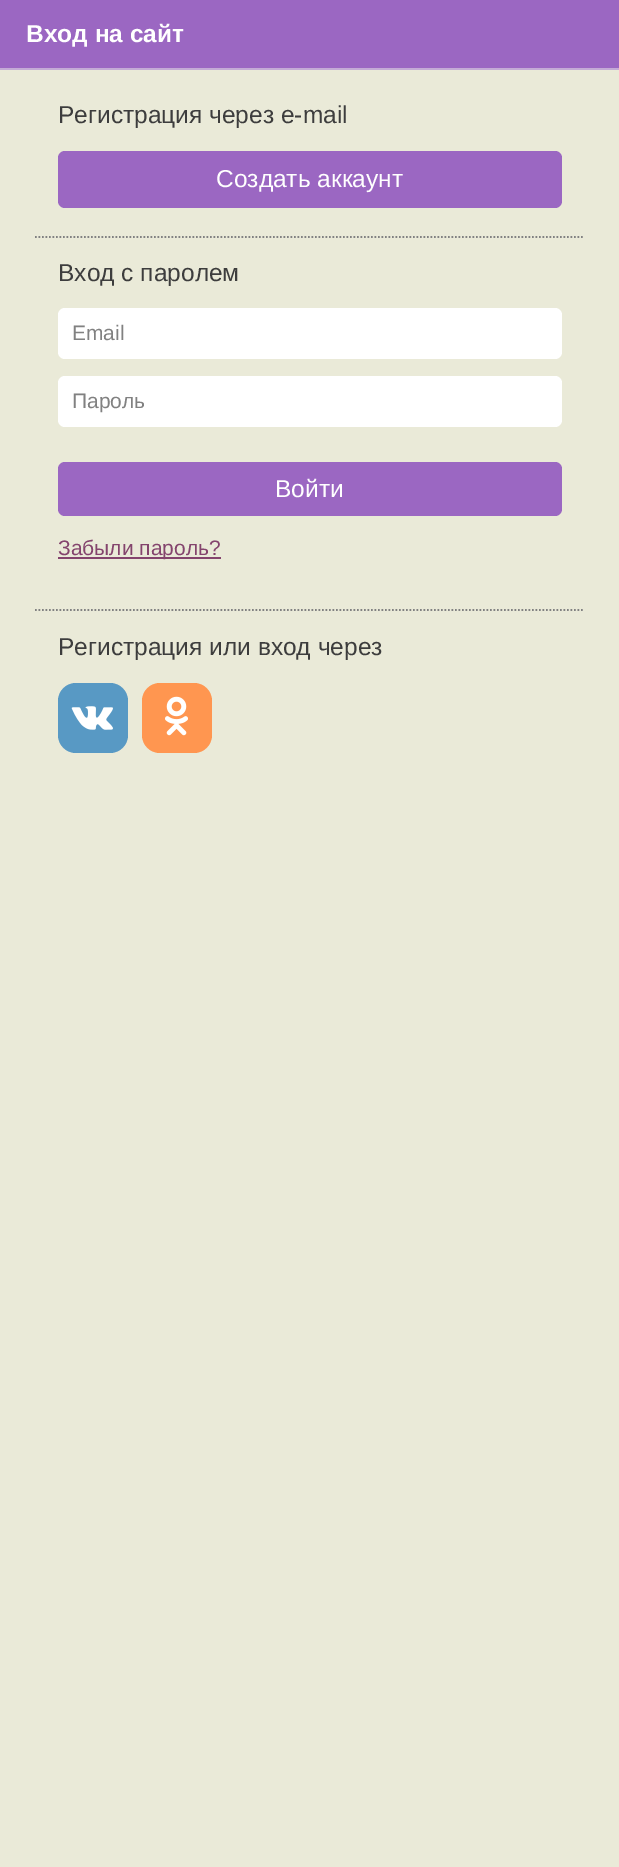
%!PS
<< /PageSize [619 1867] >> setpagedevice
/rgb { 3 { 255 div 3 1 roll } repeat setrgbcolor } def
/font { [ exch dup neg 0 0 3 -1 roll 0 0 ] selectfont } def
/text { moveto show } def
/roundrect { 5 dict begin { /r /h /w /y /x } { exch def } forall
  x r add y moveto x w add y 2 copy h add r arct x w add y h add x 1 index r arct
  x y h add x y r arct x y 2 copy exch w add exch r arct closepath end } def
/picture { 5 dict begin { /h /w /y /x /name } { exch def } forall
  gsave x y translate w h scale
  w h 8 [w 0 0 h 0 0] name (r) file false 3 colorimage grestore end } def
0 1867 translate 1 -1 scale
4 setmiterlimit
234 234 216 rgb
0 0 619 1867 rectfill
155 103 194 rgb
0 0 619 68 rectfill
196 171 214 rgb
0 68 619 2 rectfill
129 129 129 rgb
1.8 setlinewidth
[1.75 1.75] 0 setdash
35 237 moveto 549.5 0 rlineto stroke
155 103 194 rgb
58 151 504 57 7 roundrect fill
129 129 129 rgb
35 610 moveto 549.5 0 rlineto stroke
255 255 255 rgb
58 308 504 51 7 roundrect fill
58 376 504 51 7 roundrect fill
155 103 194 rgb
58 462 504 54 7 roundrect fill
132 68 109 rgb
58 557 163 2 rectfill
88 153 196 rgb
58 683 70 70 18 roundrect fill
(img_01.rgb) 71 706 42 24 picture
255 150 80 rgb
142 683 70 70 18 roundrect fill
(img_02.rgb) 165 696 23 40 picture
/LiberationSans-Bold 24.5 font
255 255 255 rgb
(Вход на сайт) 26 42 text
/LiberationSans-Regular 24.5 font
61 61 61 rgb
(Регистрация через e-mail) 58 123 text
255 255 255 rgb
(Создать аккаунт) 216 187 text
61 61 61 rgb
(Вход с паролем) 58 281 text
/LiberationSans-Regular 21 font
129 129 129 rgb
(Email) 72 340 text
(Пароль) 72 408 text
/LiberationSans-Regular 24.5 font
255 255 255 rgb
(Войти) 275 497 text
/LiberationSans-Regular 21 font
132 68 109 rgb
(Забыли пароль?) 58 555 text
/LiberationSans-Regular 24.5 font
61 61 61 rgb
(Регистрация или вход через) 58 655 text
showpage
